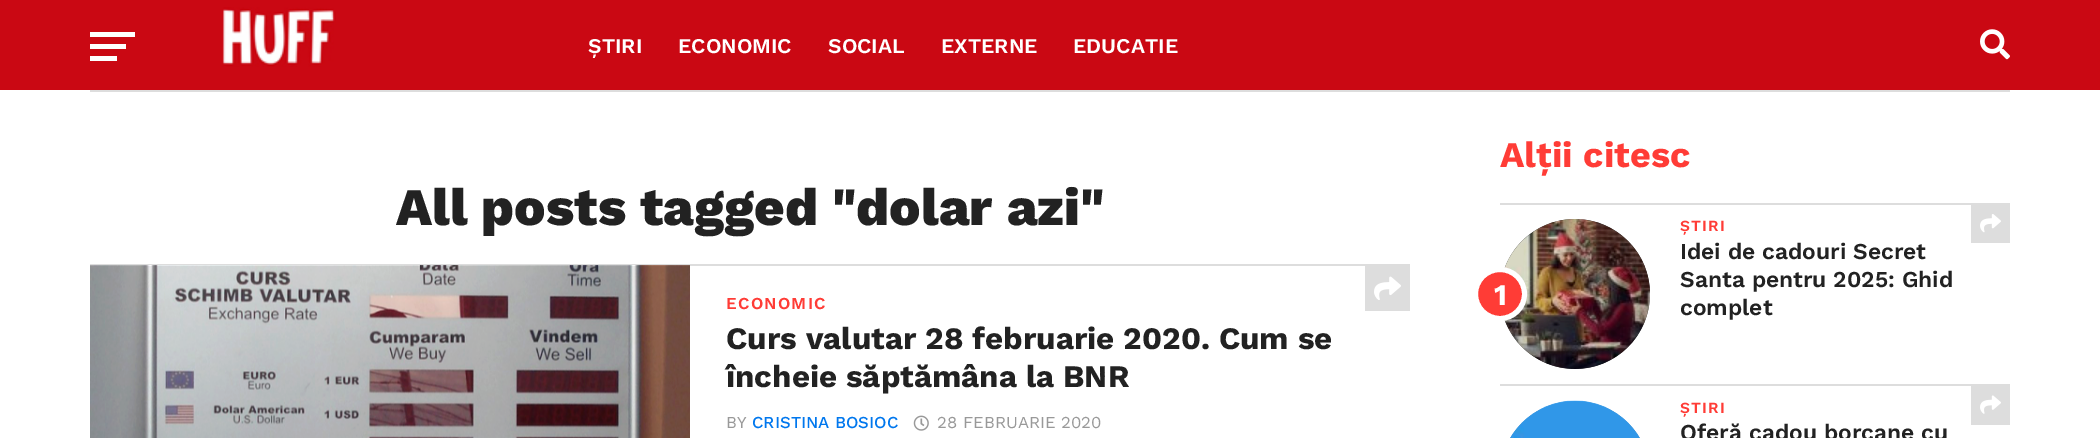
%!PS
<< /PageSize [2100 438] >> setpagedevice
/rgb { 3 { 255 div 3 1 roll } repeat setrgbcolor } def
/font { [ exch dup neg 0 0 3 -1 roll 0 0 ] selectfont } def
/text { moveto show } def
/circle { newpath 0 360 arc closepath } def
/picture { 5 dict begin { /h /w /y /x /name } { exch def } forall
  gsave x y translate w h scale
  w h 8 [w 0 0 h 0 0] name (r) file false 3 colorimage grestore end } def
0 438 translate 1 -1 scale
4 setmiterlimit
255 255 255 rgb
0 0 2100 438 rectfill
202 8 19 rgb
0 0 2100 90 rectfill
255 255 255 rgb
90 32 45 5 rectfill
90 44 36 5 rectfill
90 56 27 5 rectfill
(img_01.rgb) 222 7 114 60 picture
(img_02.rgb) 1980 29 30 31 picture
221 221 221 rgb
90 90 1920 2 rectfill
90 264 1320 2 rectfill
(img_03.rgb) 90 265 600 173 picture
1365 266 45 45 rectfill
(img_04.rgb) 1374 276 27 24 picture
(img_05.rgb) 913 415 16 16 picture
1500 203 510 2 rectfill
34 34 34 rgb
1575 294 75 circle fill
(img_06.rgb) 1504 219 146 150 picture
255 60 54 rgb
1500 294 24.5 circle gsave fill grestore
255 255 255 rgb
5 setlinewidth
stroke
221 221 221 rgb
1971 205 39 38 rectfill
(img_07.rgb) 1980 214 21 19 picture
1500 384 510 2 rectfill
(img_08.rgb) 1510 400 130 38 picture
1971 386 39 39 rectfill
(img_09.rgb) 1980 395 21 19 picture
/WorkSans-SemiBold 21 font
255 255 255 rgb
(ȘTIRI) 588 53 text
(ECONOMIC) 678 53 text
(SOCIAL) 828 53 text
(EXTERNE) 941 53 text
(EDUCATIE) 1073 53 text
/WorkSans-ExtraBold 52.75 font
34 34 34 rgb
(All posts tagged "dolar azi") 396 225 text
/WorkSans-SemiBold 16.75 font
255 60 54 rgb
726 309 moveto 1.25 0 (ECONOMIC) ashow
/WorkSans-Bold 31.25 font
34 34 34 rgb
(Curs valutar 28 februarie 2020. Cum se) 726 349 text
(încheie săptămâna la BNR) 726 387 text
/WorkSans-Regular 16.75 font
153 153 153 rgb
(BY) 726 428 text
/WorkSans-Medium 16.75 font
0 119 238 rgb
(CRISTINA BOSIOC) 752 428 text
/WorkSans-Regular 16.75 font
153 153 153 rgb
(28 FEBRUARIE 2020) 937 428 text
/WorkSans-Bold 36 font
255 60 54 rgb
(Alții citesc) 1500 167 text
/WorkSans-Bold 30 font
255 255 255 rgb
(1) 1494 305 text
/WorkSans-SemiBold 15.5 font
255 60 54 rgb
1680 231 moveto 1.25 0 (ȘTIRI) ashow
/WorkSans-SemiBold 22.75 font
34 34 34 rgb
(Idei de cadouri Secret) 1680 259 text
(Santa pentru 2025: Ghid) 1680 287 text
(complet) 1680 315 text
/WorkSans-SemiBold 15.5 font
255 60 54 rgb
1680 413 moveto 1.25 0 (ȘTIRI) ashow
/WorkSans-SemiBold 22.75 font
34 34 34 rgb
(Oferă cadou borcane cu) 1680 440 text
showpage
